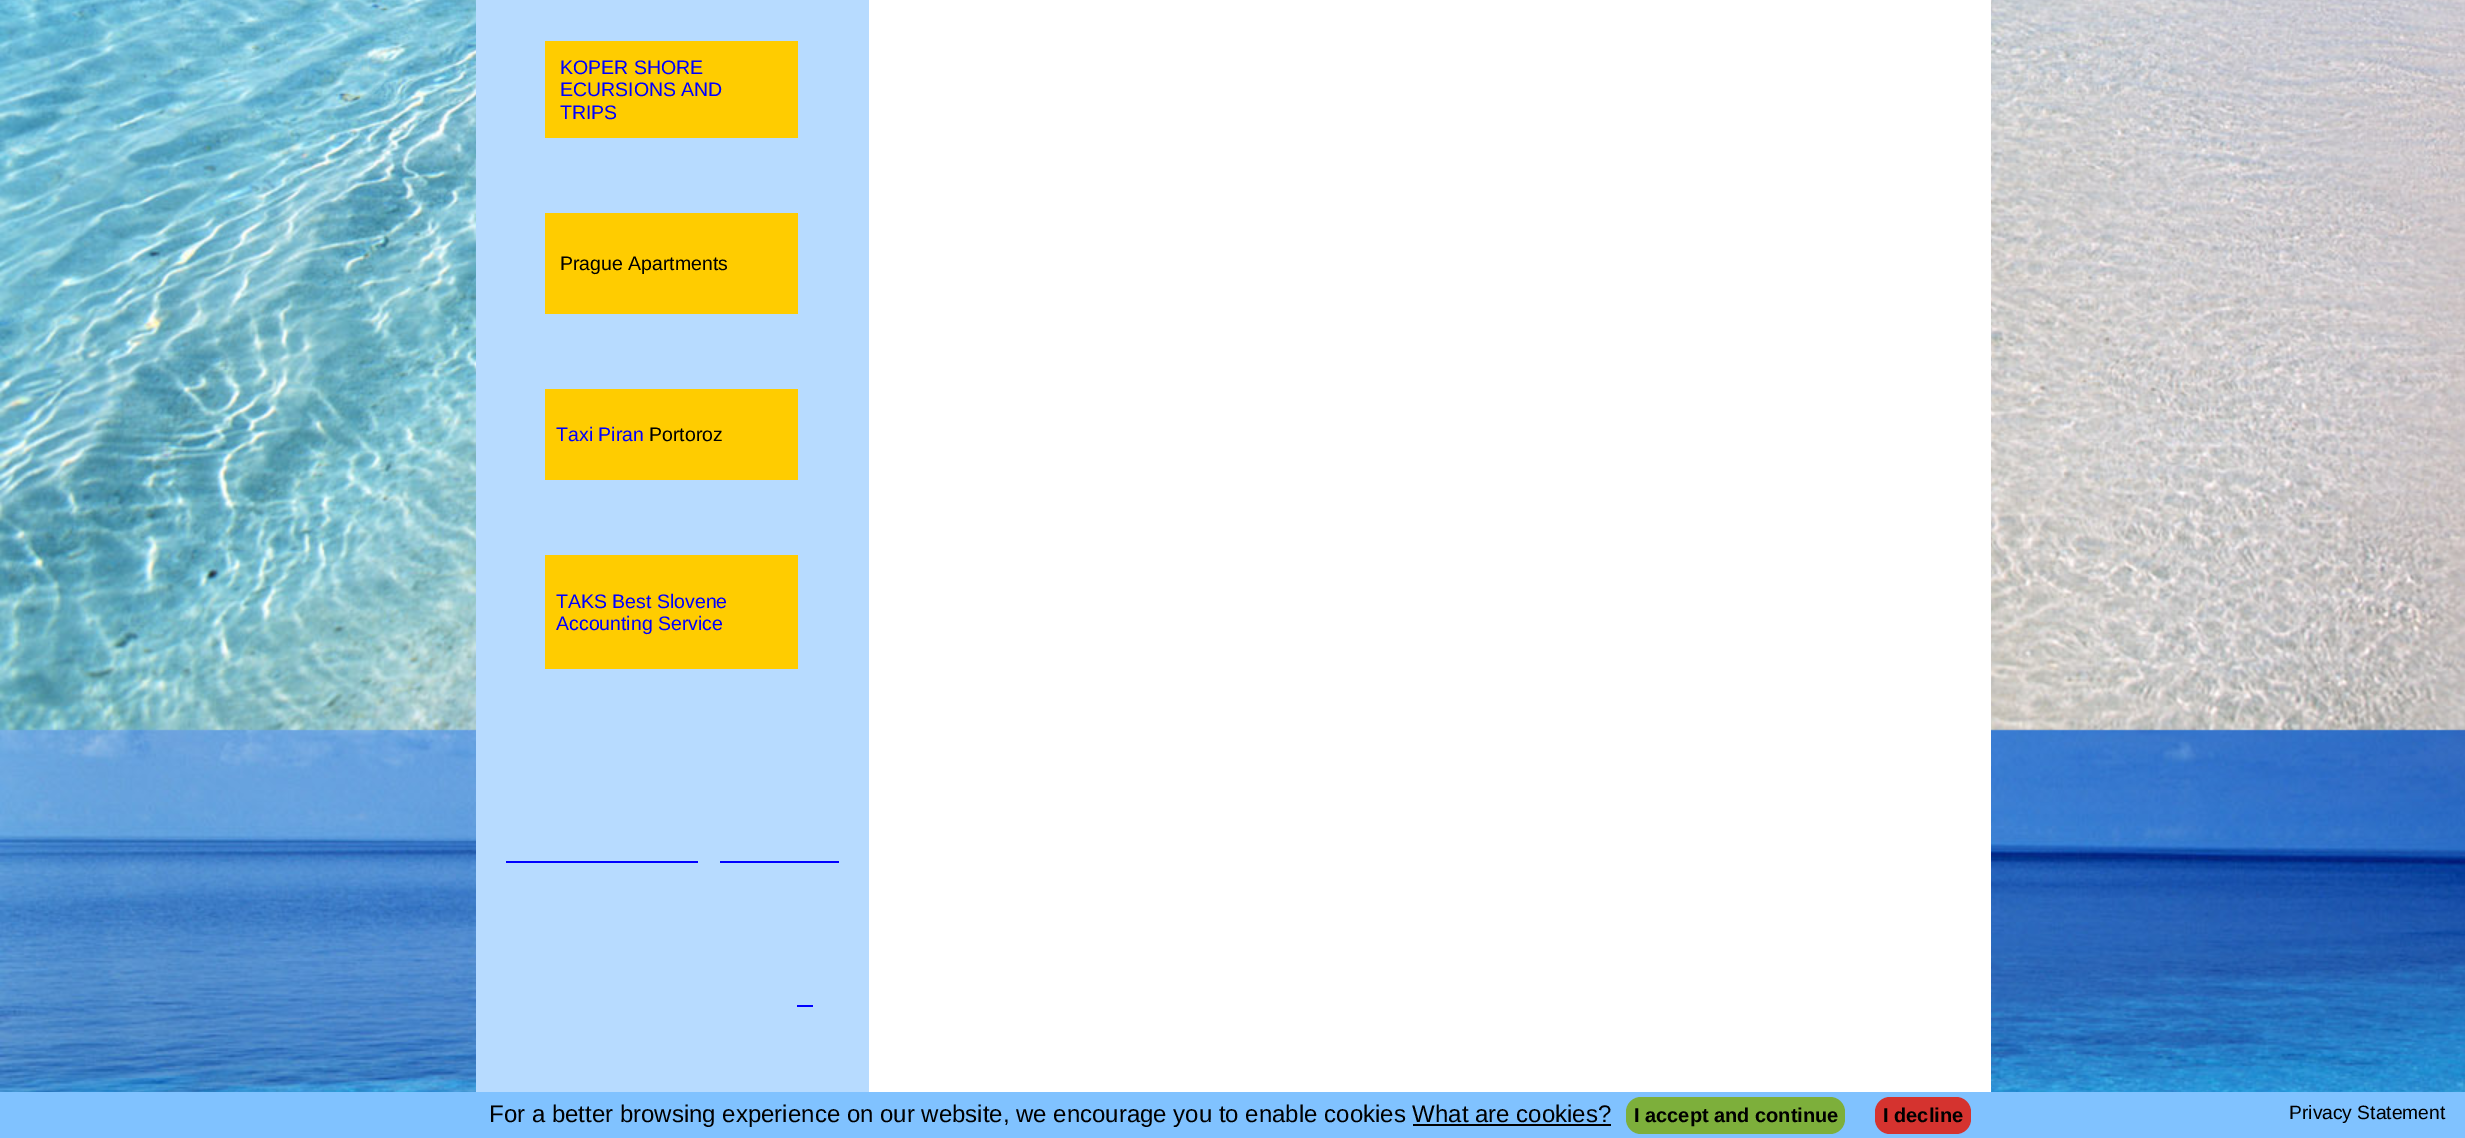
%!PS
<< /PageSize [2465 1138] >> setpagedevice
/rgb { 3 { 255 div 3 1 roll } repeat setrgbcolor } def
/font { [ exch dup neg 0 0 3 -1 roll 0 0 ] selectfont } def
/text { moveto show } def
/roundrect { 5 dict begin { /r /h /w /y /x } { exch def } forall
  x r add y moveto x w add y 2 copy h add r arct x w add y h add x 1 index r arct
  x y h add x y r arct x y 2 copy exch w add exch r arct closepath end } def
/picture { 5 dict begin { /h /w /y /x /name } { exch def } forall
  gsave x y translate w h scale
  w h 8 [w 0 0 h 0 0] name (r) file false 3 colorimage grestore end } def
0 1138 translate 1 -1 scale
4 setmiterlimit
255 255 255 rgb
0 0 2465 1138 rectfill
(img_01.rgb) 0 0 2465 1092 picture
183 219 255 rgb
476 0 393 1092 rectfill
255 204 0 rgb
545 41 253 97 rectfill
545 213 253 101 rectfill
545 389 253 91 rectfill
545 555 253 114 rectfill
0 0 255 rgb
506 861 192 2 rectfill
720 861 119 2 rectfill
797 1005 16 2 rectfill
255 255 255 rgb
869 0 1122 1092 rectfill
128 194 255 rgb
0 1092 2465 46 rectfill
125 175 59 rgb
1626 1097 219 37 15 roundrect fill
213 51 47 rgb
1875 1097 96 37 15 roundrect fill
0 0 0 rgb
1413 1124 198 2 rectfill
/LiberationSans-Regular 19.5 font
0 0 255 rgb
(KOPER SHORE) 560 74 text
(ECURSIONS AND) 560 96 text
(TRIPS) 560 119 text
0 0 0 rgb
(Prague Apartments) 560 270 text
0 0 255 rgb
(Taxi Piran) 556 441 text
0 0 0 rgb
(Portoroz) 649 441 text
0 0 255 rgb
(TAKS Best Slovene) 556 608 text
(Accounting Service) 556 630 text
/LiberationSans-Regular 24 font
0 0 0 rgb
(For a better browsing experience on our website, we encourage you to enable cookies What are cookies?) 489 1122 text
/LiberationSans-Bold 20 font
(I accept and continue) 1634 1122 text
(I decline) 1883 1122 text
/LiberationSans-Regular 19.25 font
(Privacy Statement) 2289 1119 text
showpage
